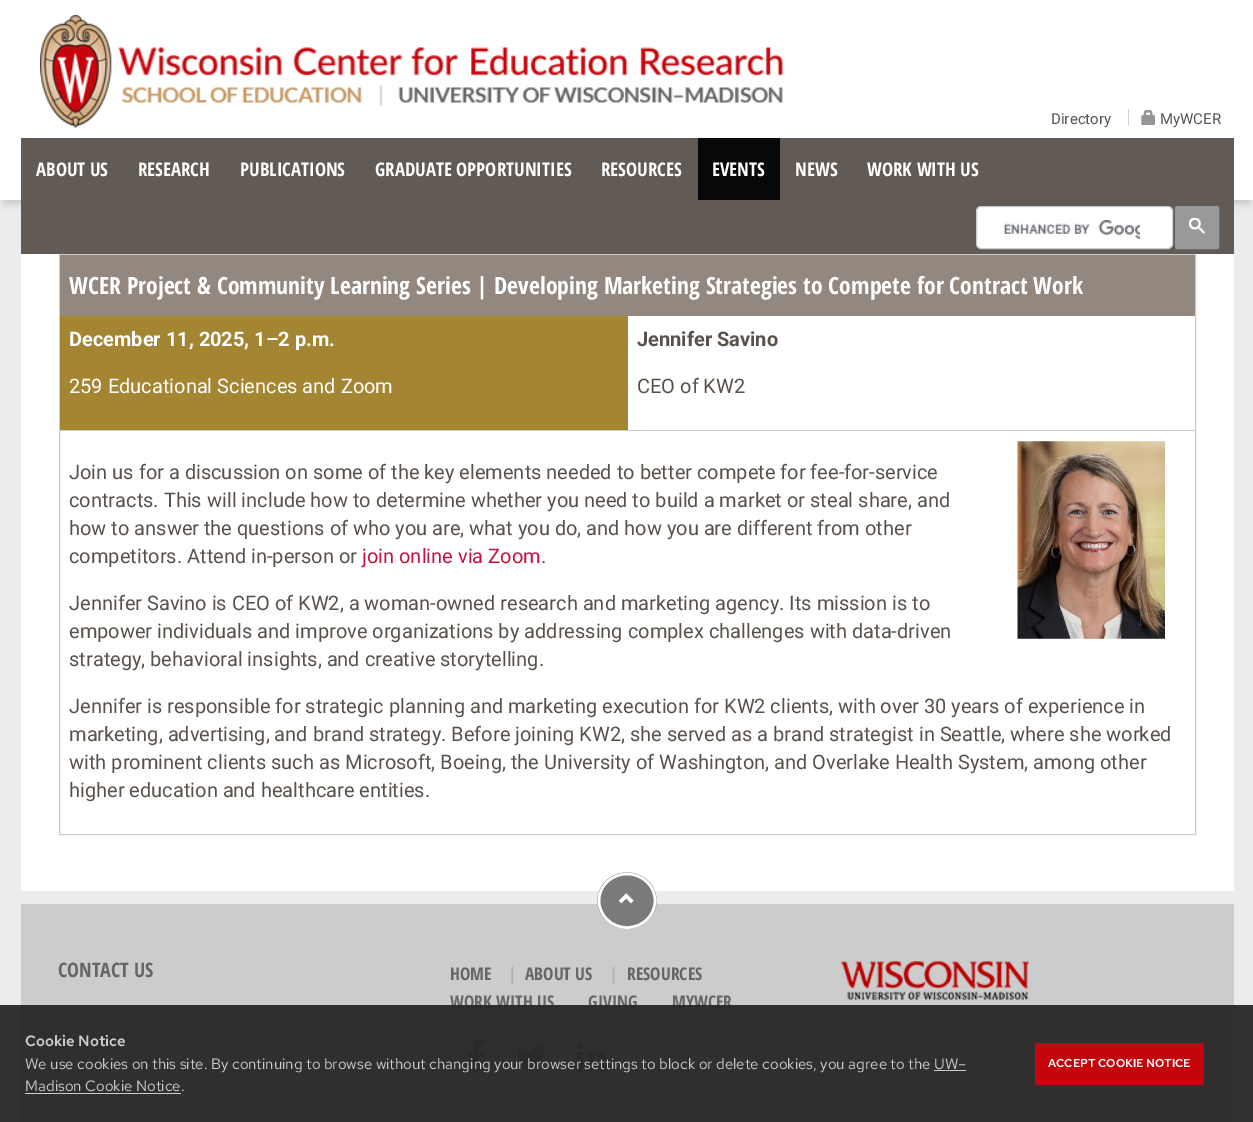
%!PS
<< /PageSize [1253 1122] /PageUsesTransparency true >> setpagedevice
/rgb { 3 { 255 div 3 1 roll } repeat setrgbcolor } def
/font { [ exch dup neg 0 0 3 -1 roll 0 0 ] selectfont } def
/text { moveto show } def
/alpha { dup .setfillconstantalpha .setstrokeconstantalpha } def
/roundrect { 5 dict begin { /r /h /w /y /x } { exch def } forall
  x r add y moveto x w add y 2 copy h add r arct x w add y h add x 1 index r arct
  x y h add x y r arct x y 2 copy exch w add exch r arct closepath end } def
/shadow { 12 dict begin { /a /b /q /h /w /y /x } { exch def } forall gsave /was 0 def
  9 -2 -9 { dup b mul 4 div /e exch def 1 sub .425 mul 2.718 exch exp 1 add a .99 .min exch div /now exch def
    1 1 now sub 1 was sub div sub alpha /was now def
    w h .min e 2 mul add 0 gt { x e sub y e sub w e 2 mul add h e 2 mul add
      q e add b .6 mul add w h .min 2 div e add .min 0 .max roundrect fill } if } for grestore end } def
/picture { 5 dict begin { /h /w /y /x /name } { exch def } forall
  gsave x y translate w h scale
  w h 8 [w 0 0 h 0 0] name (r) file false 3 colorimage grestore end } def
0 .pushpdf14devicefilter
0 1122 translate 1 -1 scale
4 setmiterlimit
236 236 236 rgb
0 0 1253 1122 rectfill
255 255 255 rgb
0 0 1253 138 rectfill
(img_01.rgb) 40 15 743 113 picture
208 208 208 rgb
1128 109 1 17 rectfill
(img_02.rgb) 1141 110 14 15 picture
0 0 0 rgb
4 149 1246 55 0 4 0.15 shadow
255 255 255 rgb
0 138 1253 62 rectfill
98 91 85 rgb
21 138 1213 116 rectfill
8 8 8 rgb
698 138 82 62 rectfill
255 255 255 rgb
976.5 206.5 196 42 4.5 roundrect gsave fill grestore
204 204 204 rgb
stroke
(img_03.rgb) 1003 220 137 19 picture
153 153 153 rgb
1175.5 206.5 43 42 2 roundrect gsave fill grestore
stroke
(img_04.rgb) 1189 218 16 16 picture
255 255 255 rgb
21 254 1213 637 rectfill
204 204 204 rgb
59.5 254.5 1136 580 rectstroke
146 136 127 rgb
60 255 1135 61 rectfill
163 133 50 rgb
60 316 568 114 rectfill
204 204 204 rgb
60 430 1135 1 rectfill
(img_05.rgb) 1017 441 148 198 picture
21 904 1213 218 rectfill
123 122 121 rgb
627 872.5 moveto 16.5 0 29.5 12.5 29.5 28 rcurveto 0 15.5 -13 28 -29.5 28 rcurveto -16.5 0 -29.5 -12.5 -29.5 -28 rcurveto 0 -15.5 13 -28 29.5 -28 rcurveto closepath fill
255 255 255 rgb
2.5 setlinewidth
627 874 moveto 15.5 0 28 12 28 26.5 rcurveto 0 15 -12.5 27 -28 27 rcurveto -15.5 0 -28 -12 -28 -27 rcurveto 0 -14.5 12.5 -26.5 28 -26.5 rcurveto closepath stroke
(img_06.rgb) 618 893 16 11 picture
(img_07.rgb) 468 1040 17 33 picture
(img_08.rgb) 516 1045 31 25 picture
(img_09.rgb) 576 1042 31 30 picture
(img_10.rgb) 841 961 188 39 picture
/Roboto-Regular 15 font
85 85 85 rgb
(Directory) 1051 124 text
(MyWCER) 1160 124 text
/OpenSansCondensed-Bold 18.75 font
255 255 255 rgb
(ABOUT US) 36 176 text
(RESEARCH) 138 176 text
(PUBLICATIONS) 240 176 text
(GRADUATE OPPORTUNITIES) 375 176 text
(RESOURCES) 601 176 text
(EVENTS) 712 176 text
(NEWS) 795 176 text
(WORK WITH US) 867 176 text
/OpenSansCondensed-Bold 23.75 font
(WCER Project & Community Learning Series | Developing Marketing Strategies to Compete for Contract Work) 69 294 text
/Roboto-Bold 20 font
(December 11, 2025, 1–2 p.m.) 69 346 text
/Roboto-Regular 20 font
(259 Educational Sciences and Zoom) 69 393 text
/Roboto-Bold 20 font
89 82 75 rgb
(Jennifer Savino) 637 346 text
/Roboto-Regular 20 font
(CEO of KW2) 637 393 text
(Join us for a discussion on some of the key elements needed to better compete for fee-for-service) 69 479 text
(contracts. This will include how to determine whether you need to build a market or steal share, and) 69 507 text
(how to answer the questions of who you are, what you do, and how you are different from other) 69 535 text
(competitors. Attend in-person or) 69 563 text
196 19 64 rgb
(join online via Zoom) 362 563 text
89 82 75 rgb
(.) 541 563 text
(Jennifer Savino is CEO of KW2, a woman-owned research and marketing agency. Its mission is to) 69 610 text
(empower individuals and improve organizations by addressing complex challenges with data-driven) 69 638 text
(strategy, behavioral insights, and creative storytelling.) 69 666 text
(Jennifer is responsible for strategic planning and marketing execution for KW2 clients, with over 30 years of experience in) 69 713 text
(marketing, advertising, and brand strategy. Before joining KW2, she served as a brand strategist in Seattle, where she worked) 69 741 text
(with prominent clients such as Microsoft, Boeing, the University of Washington, and Overlake Health System, among other) 69 769 text
(higher education and healthcare entities.) 69 797 text
/OpenSansCondensed-Bold 20 font
102 102 102 rgb
(CONTACT US) 58 977 text
/OpenSansCondensed-Bold 17.5 font
(HOME) 450 980 text
179 179 179 rgb
(|) 508 980 text
102 102 102 rgb
(ABOUT US) 525 980 text
179 179 179 rgb
(|) 609 980 text
102 102 102 rgb
(RESOURCES) 627 980 text
(WORK WITH US) 450 1008 text
(GIVING) 588 1008 text
(MYWCER) 672 1008 text
0.95 alpha
40 39 40 rgb
0 1005 1253 117 rectfill
/RedHatText-SemiBold 15 font
1 alpha
204 204 204 rgb
(Cookie Notice) 25 1046 text
/RedHatText-Regular 15 font
(We use cookies on this site. By continuing to browse without changing your browser settings to block or delete cookies, you agree to the UW–) 25 1069 text
(Madison Cookie Notice.) 25 1091 text
934 1070 32 1 rectfill
25 1093 156 1 rectfill
197 5 12 rgb
1035 1043 169 42 2.5 roundrect fill
/RedHatText-SemiBold 11.5 font
255 255 255 rgb
(ACCEPT COOKIE NOTICE) 1048 1067 text
.poppdf14devicefilter showpage
